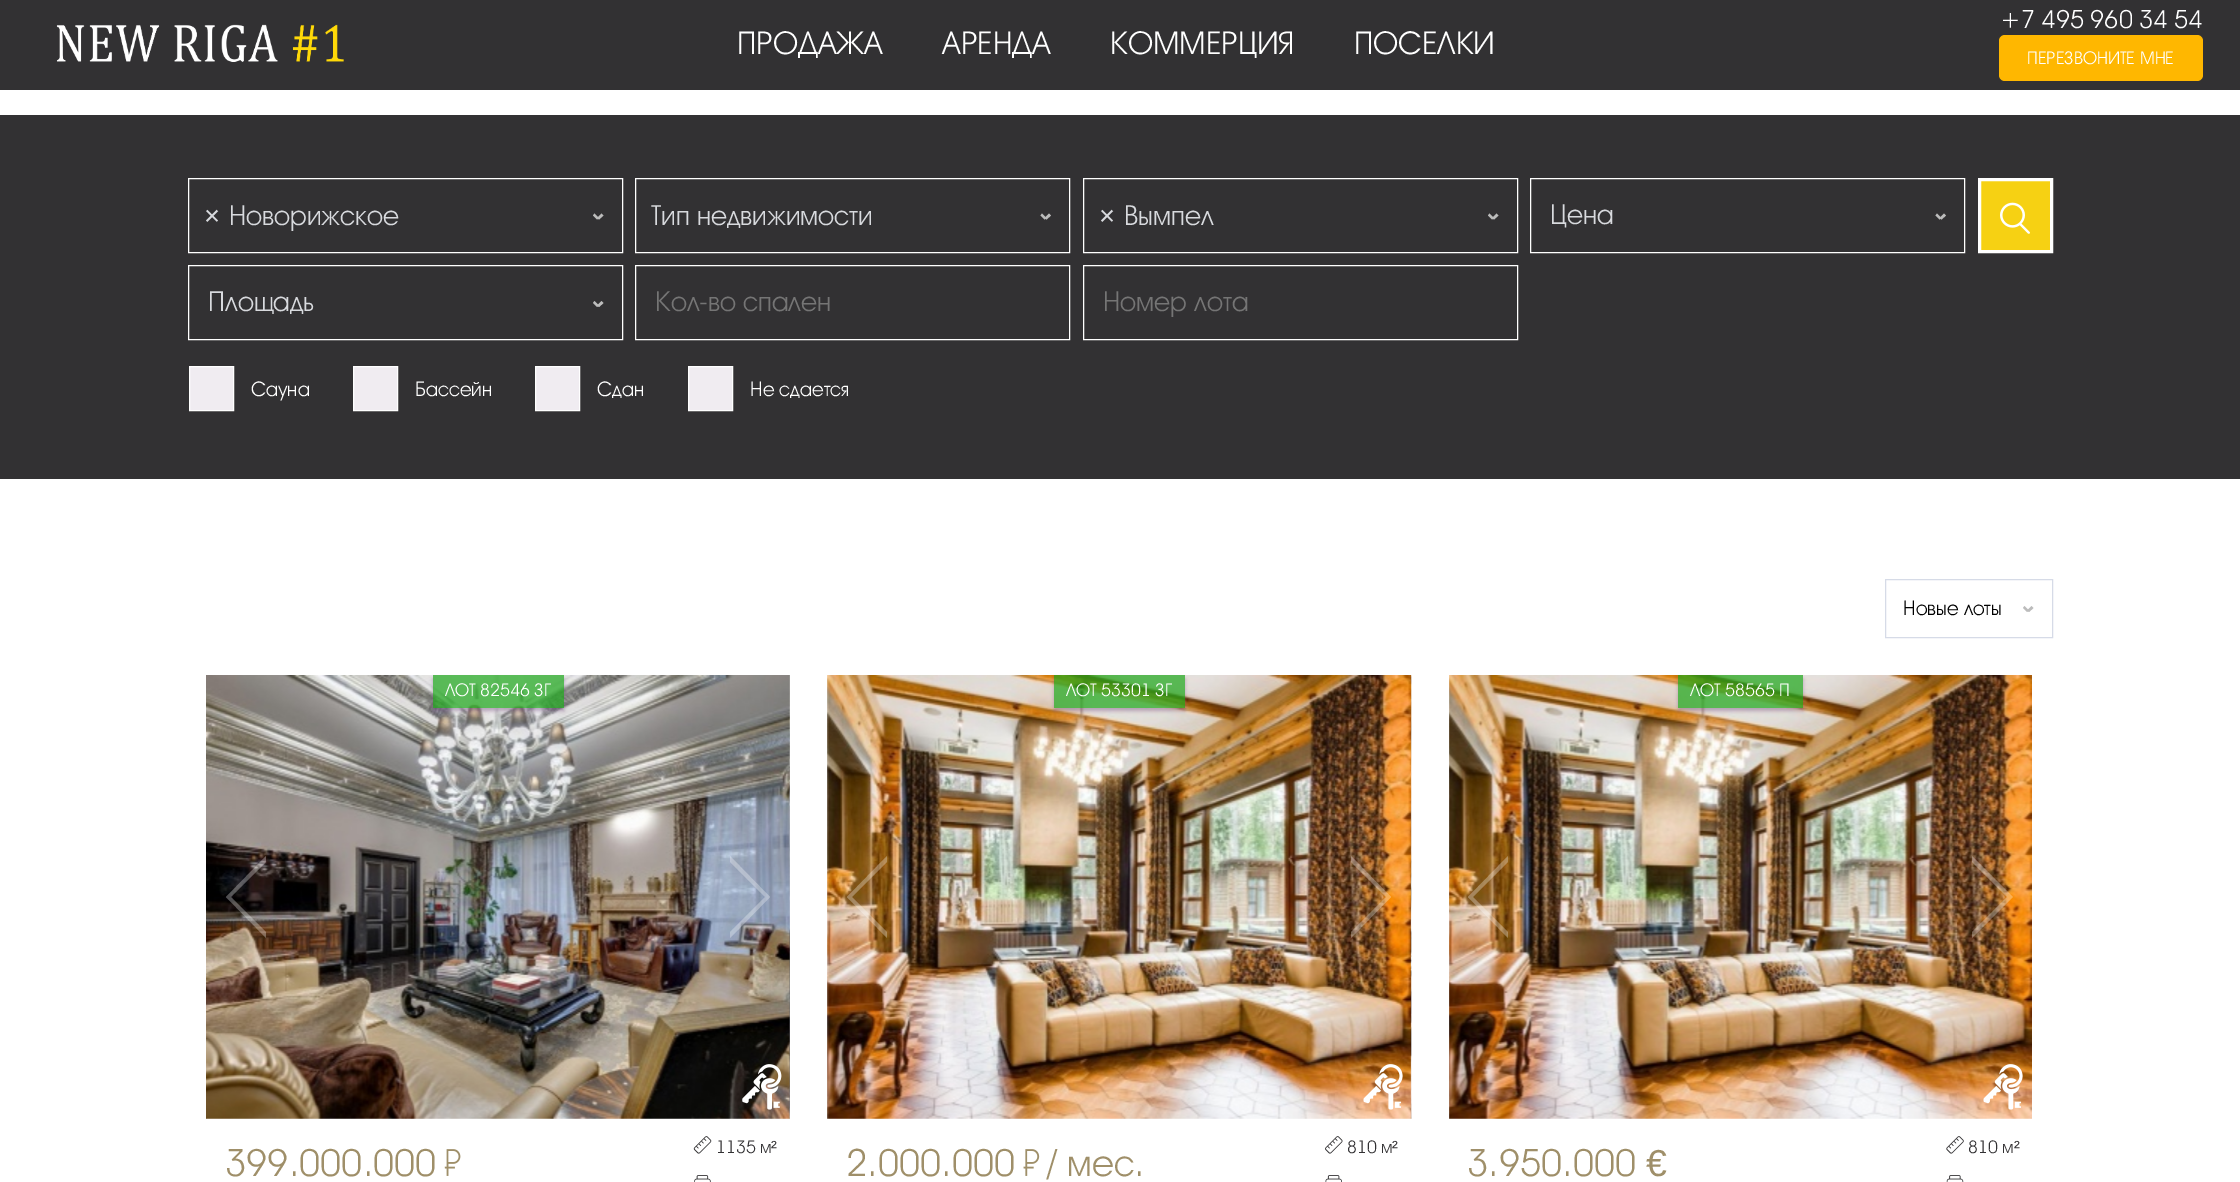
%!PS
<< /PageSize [2240 1182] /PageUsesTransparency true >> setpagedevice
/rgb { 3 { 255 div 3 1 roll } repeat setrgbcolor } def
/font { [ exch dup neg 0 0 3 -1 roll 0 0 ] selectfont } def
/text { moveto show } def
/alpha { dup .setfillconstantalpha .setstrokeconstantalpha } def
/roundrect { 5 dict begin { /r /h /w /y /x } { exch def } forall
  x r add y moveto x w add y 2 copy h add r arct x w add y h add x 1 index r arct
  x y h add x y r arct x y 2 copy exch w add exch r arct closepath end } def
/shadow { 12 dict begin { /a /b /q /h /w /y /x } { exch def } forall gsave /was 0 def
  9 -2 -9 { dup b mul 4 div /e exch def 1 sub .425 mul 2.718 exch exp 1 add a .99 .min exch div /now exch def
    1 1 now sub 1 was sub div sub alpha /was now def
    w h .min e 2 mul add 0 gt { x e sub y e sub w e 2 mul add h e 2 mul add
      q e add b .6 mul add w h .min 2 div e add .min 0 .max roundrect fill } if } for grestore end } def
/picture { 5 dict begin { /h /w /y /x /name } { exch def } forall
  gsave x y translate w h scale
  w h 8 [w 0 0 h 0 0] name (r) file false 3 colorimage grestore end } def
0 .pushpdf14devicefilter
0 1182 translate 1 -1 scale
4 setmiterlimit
255 255 255 rgb
0 0 2240 1182 rectfill
50 49 51 rgb
0 0 2240 90 rectfill
(img_01.rgb) 56 24 288 38 picture
255 183 0 rgb
1999 35 204 46 6 roundrect fill
50 49 51 rgb
0 115 2240 364 rectfill
255 255 255 rgb
188.5 178.5 434 74 rectstroke
188 188 188 rgb
601.5 213.5 moveto 2 2 rlineto -4.5 4 rlineto -2 -1.5 rlineto closepath fill
594.5 213.5 moveto 4.5 4.5 rlineto -2 1.5 rlineto -4 -4 rlineto closepath fill
255 255 255 rgb
635.5 178.5 434 74 rectstroke
188 188 188 rgb
1049 213.5 moveto 2 2 rlineto -4.5 4 rlineto -2 -1.5 rlineto closepath fill
1042 213.5 moveto 4.5 4.5 rlineto -2 1.5 rlineto -4 -4 rlineto closepath fill
255 255 255 rgb
1083.5 178.5 434 74 rectstroke
188 188 188 rgb
1496.5 213.5 moveto 2 2 rlineto -4.5 4 rlineto -2 -1.5 rlineto closepath fill
1489.5 213.5 moveto 4.5 4.5 rlineto -2 1.5 rlineto -4 -4 rlineto closepath fill
255 255 255 rgb
1530.5 178.5 434 74 rectstroke
188 188 188 rgb
1944 213.5 moveto 2 2 rlineto -4.5 4 rlineto -2 -1.5 rlineto closepath fill
1937 213.5 moveto 4.5 4.5 rlineto -2 1.5 rlineto -4 -4 rlineto closepath fill
246 209 19 rgb
1979.5 179.5 moveto 72 0 rlineto 0 72 rlineto -72 0 rlineto closepath gsave fill grestore
255 255 255 rgb
3 setlinewidth
stroke
(img_02.rgb) 2000 202 30 32 picture
1 setlinewidth
188.5 265.5 434 74 rectstroke
188 188 188 rgb
601.5 301 moveto 2 2 rlineto -4.5 4 rlineto -2 -1.5 rlineto closepath fill
594.5 301 moveto 4.5 4.5 rlineto -2 1.5 rlineto -4 -4 rlineto closepath fill
255 255 255 rgb
635.5 265.5 434 74 rectstroke
1083.5 265.5 434 74 rectstroke
240 236 241 rgb
189.5 366.5 moveto 44 0 rlineto 0 44 rlineto -44 0 rlineto closepath gsave fill grestore
255 255 255 rgb
stroke
240 236 241 rgb
353.5 366.5 moveto 44 0 rlineto 0 44 rlineto -44 0 rlineto closepath gsave fill grestore
255 255 255 rgb
stroke
240 236 241 rgb
535.5 366.5 moveto 44 0 rlineto 0 44 rlineto -44 0 rlineto closepath gsave fill grestore
255 255 255 rgb
stroke
240 236 241 rgb
688.5 366.5 moveto 44 0 rlineto 0 44 rlineto -44 0 rlineto closepath gsave fill grestore
255 255 255 rgb
stroke
214 219 231 rgb
1885.5 579.5 167 58 rectstroke
188 188 188 rgb
2031.5 606 moveto 2 2 rlineto -4.5 4 rlineto -2 -1.5 rlineto closepath fill
2024.5 606 moveto 4.5 4.5 rlineto -2 1.5 rlineto -4 -4 rlineto closepath fill
(img_04.rgb) 206 1118 1 1 picture
(img_03.rgb) 206 675 584 444 picture
(img_05.rgb) 789 675 1 444 picture
0.3 alpha
255 255 255 rgb
266 938 moveto -40 -41 rlineto 5 0 rlineto 35 35 rlineto closepath fill
226 897 moveto 40 -41 rlineto 0 6 rlineto -35 35 rlineto closepath fill
730 856 moveto 40 41 rlineto -5 0 rlineto -35 -35 rlineto closepath fill
770 897 moveto -40 41 rlineto 0 -6 rlineto 35 -35 rlineto closepath fill
gsave
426 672 moveto 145 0 rlineto 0 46 rlineto -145 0 rlineto closepath 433 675 moveto 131 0 rlineto 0 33 rlineto -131 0 rlineto closepath eoclip newpath
1 alpha
106 63 120 rgb
433 679 131 32 0 2 0.4 shadow
grestore
0.7 alpha
28 167 26 rgb
433 675 131 33 rectfill
1 alpha
(img_06.rgb) 742 1064 40 46 picture
(img_07.rgb) 444 1149 17 27 picture
(img_08.rgb) 693 1136 19 18 picture
(img_09.rgb) 694 1175 17 7 picture
(img_10.rgb) 827 675 584 444 picture
(img_11.rgb) 1410 675 2 444 picture
0.3 alpha
255 255 255 rgb
887 938 moveto -40 -41 rlineto 5 0 rlineto 35 35 rlineto closepath fill
847 897 moveto 40 -41 rlineto 0 6 rlineto -35 35 rlineto closepath fill
1351 856 moveto 40 41 rlineto -5 0 rlineto -35 -35 rlineto closepath fill
1391 897 moveto -40 41 rlineto 0 -6 rlineto 35 -35 rlineto closepath fill
gsave
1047 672 moveto 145 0 rlineto 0 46 rlineto -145 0 rlineto closepath 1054 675 moveto 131 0 rlineto 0 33 rlineto -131 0 rlineto closepath eoclip newpath
1 alpha
106 63 120 rgb
1054 679 131 32 0 2 0.4 shadow
grestore
0.7 alpha
28 167 26 rgb
1054 675 131 33 rectfill
1 alpha
(img_12.rgb) 1363 1064 40 46 picture
(img_13.rgb) 1023 1149 17 27 picture
(img_14.rgb) 1325 1136 18 18 picture
(img_15.rgb) 1325 1175 17 7 picture
(img_16.rgb) 1449 675 583 444 picture
0.3 alpha
255 255 255 rgb
1508 938 moveto -40 -41 rlineto 5 0 rlineto 35 35 rlineto closepath fill
1468 897 moveto 40 -41 rlineto 0 6 rlineto -35 35 rlineto closepath fill
1972 856 moveto 41 41 rlineto -6 0 rlineto -35 -35 rlineto closepath fill
2013 897 moveto -41 41 rlineto 0 -6 rlineto 35 -35 rlineto closepath fill
gsave
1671 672 moveto 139 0 rlineto 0 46 rlineto -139 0 rlineto closepath 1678 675 moveto 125 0 rlineto 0 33 rlineto -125 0 rlineto closepath eoclip newpath
1 alpha
106 63 120 rgb
1678 679 125 32 0 2 0.4 shadow
grestore
0.7 alpha
28 167 26 rgb
1678 675 125 33 rectfill
1 alpha
(img_17.rgb) 1983 1064 40 46 picture
(img_18.rgb) 1946 1136 18 18 picture
(img_19.rgb) 1946 1175 18 7 picture
/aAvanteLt-Light 31.25 font
255 255 255 rgb
(ПРОДАЖА) 737 54 text
(АРЕНДА) 942 54 text
(КОММЕРЦИЯ) 1110 54 text
(ПОСЕЛКИ) 1354 54 text
/aAvanteLt-Light 25 font
(+7 495 960 34 54) 2000 28 text
/aAvanteLt-Light 17.5 font
(ПЕРЕЗВОНИТЕ МНЕ) 2027 64 text
/LiberationSans-Regular 27.5 font
216 218 222 rgb
(×) 204 225 text
/aAvanteLt-Light 27.5 font
(Новорижское) 229 225 text
(Тип недвижимости) 651 225 text
/LiberationSans-Regular 27.5 font
(×) 1099 225 text
/aAvanteLt-Light 27.5 font
(Вымпел) 1124 225 text
(Цена) 1550 224 text
(Площадь) 208 311 text
117 117 117 rgb
(Кол-во спален) 655 311 text
(Номер лота) 1103 311 text
/aAvanteLt-Light 20 font
255 255 255 rgb
(Сауна) 251 396 text
(Бассейн) 415 396 text
(Сдан) 597 396 text
(Не сдается) 750 396 text
0 0 0 rgb
(Новые лоты) 1903 615 text
/aAvanteLt-Light 17.5 font
255 255 255 rgb
(ЛОТ 82546 ЗГ) 445 696 text
/aAvanteLt-Light 37.5 font
159 143 105 rgb
(399.000.000) 225 1176 text
/aAvanteLt-Light 17.5 font
50 49 51 rgb
(1135 м) 716 1153 text
/LiberationSans-Regular 17.5 font
(²) 771 1153 text
/aAvanteLt-Light 17.5 font
255 255 255 rgb
(ЛОТ 53301 ЗГ) 1066 696 text
/aAvanteLt-Light 37.5 font
159 143 105 rgb
(2.000.000) 846 1176 text
(/ мес.) 1047 1176 text
/aAvanteLt-Light 17.5 font
50 49 51 rgb
(810 м) 1347 1153 text
/LiberationSans-Regular 17.5 font
(²) 1392 1153 text
/aAvanteLt-Light 17.5 font
255 255 255 rgb
(ЛОТ 58565 П) 1690 696 text
/aAvanteLt-Light 37.5 font
159 143 105 rgb
(3.950.000) 1467 1176 text
/LiberationSans-Regular 37.5 font
(€) 1646 1176 text
/aAvanteLt-Light 17.5 font
50 49 51 rgb
(810 м) 1968 1153 text
/LiberationSans-Regular 17.5 font
(²) 2014 1153 text
.poppdf14devicefilter showpage
